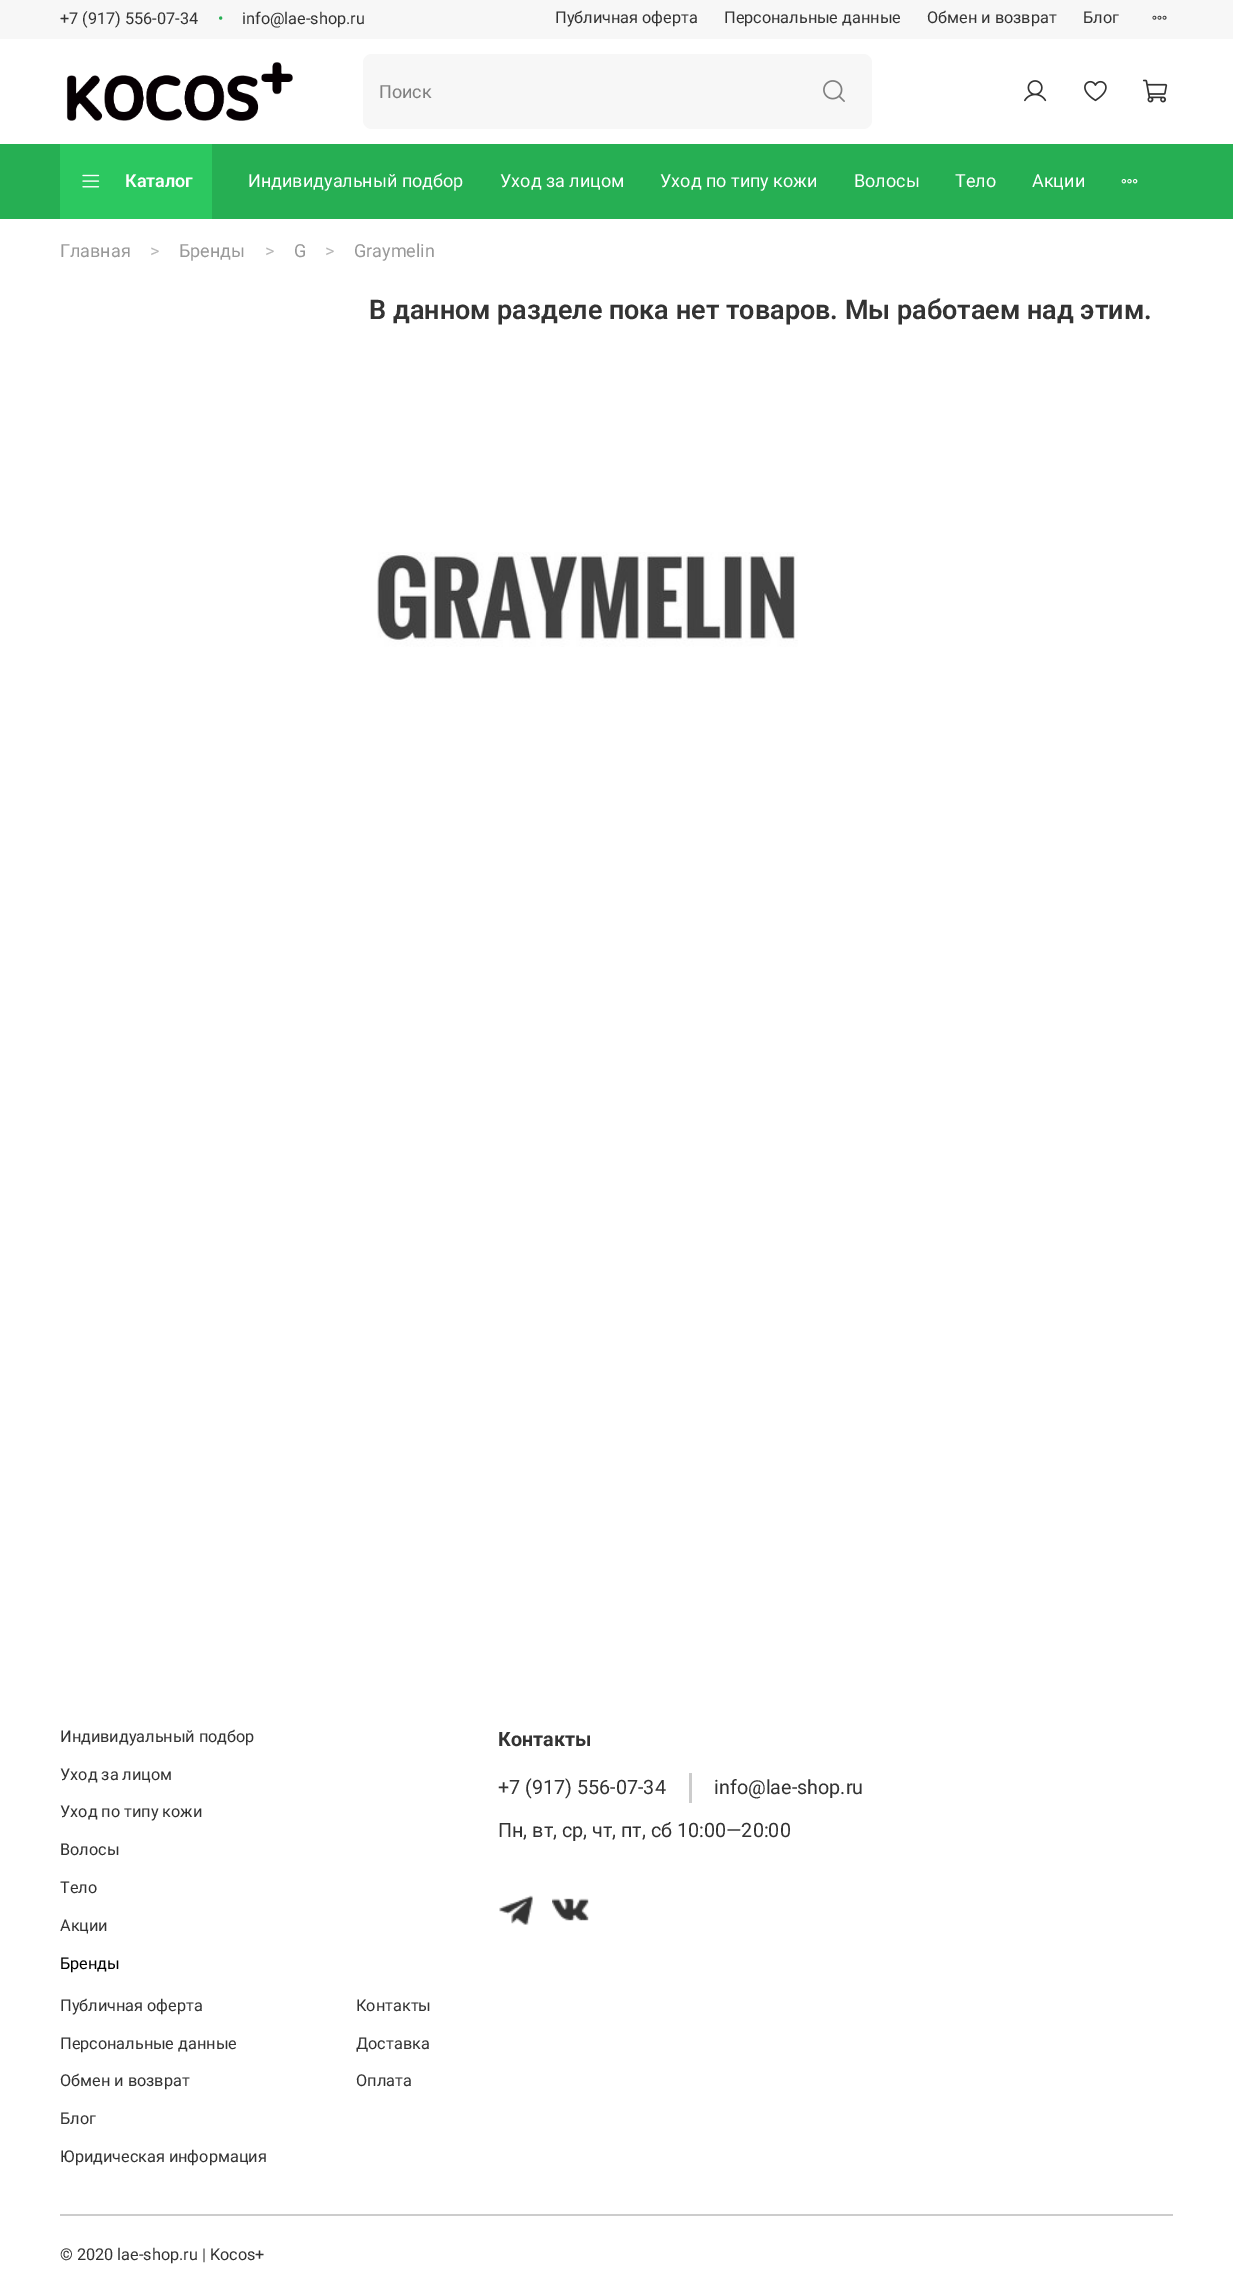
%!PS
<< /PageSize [1233 2285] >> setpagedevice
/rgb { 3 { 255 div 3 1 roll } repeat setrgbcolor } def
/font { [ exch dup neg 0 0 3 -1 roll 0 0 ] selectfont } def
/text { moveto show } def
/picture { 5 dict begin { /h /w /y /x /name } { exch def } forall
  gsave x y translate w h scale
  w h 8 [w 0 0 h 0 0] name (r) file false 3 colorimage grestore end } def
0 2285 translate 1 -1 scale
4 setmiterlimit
255 255 255 rgb
0 0 1233 2285 rectfill
247 247 247 rgb
0 0 1233 39 rectfill
(img_01.rgb) 1152 15 15 5 picture
(img_02.rgb) 66 62 227 59 picture
372 54 moveto 425 0 rlineto 0 75 rlineto -425 0 rlineto -5 0 -9 -4 -9 -9 rcurveto 0 -57 rlineto 0 -5 4 -9 9 -9 rcurveto closepath fill
797 54 moveto 66 0 rlineto 5 0 9 4 9 9 rcurveto 0 57 rlineto 0 5 -4 9 -9 9 rcurveto -66 0 rlineto closepath fill
(img_03.rgb) 823 80 22 22 picture
(img_04.rgb) 1024 80 23 22 picture
(img_05.rgb) 1084 80 23 22 picture
(img_06.rgb) 1142 79 26 24 picture
38 175 83 rgb
0 144 1233 75 rectfill
44 200 96 rgb
60 144 152 75 rectfill
(img_07.rgb) 82 174 18 14 picture
(img_08.rgb) 1121 179 17 5 picture
(img_09.rgb) 377 552 421 95 picture
204 204 204 rgb
689 1773 3 30 rectfill
(img_10.rgb) 499 1895 34 30 picture
(img_11.rgb) 552 1898 37 23 picture
60 2214 1113 2 rectfill
/Roboto-Regular 16.25 font
51 51 51 rgb
(+7 \(917\) 556-07-34) 60 24 text
38 175 83 rgb
(•) 218 24 text
51 51 51 rgb
(info@lae-shop.ru) 242 24 text
(Публичная оферта) 555 23 text
(Персональные данные) 724 23 text
(Обмен и возврат) 927 23 text
(Блог) 1083 23 text
/Roboto-Regular 18 font
128 128 128 rgb
(Поиск) 379 98 text
/Roboto-SemiBold 18 font
255 255 255 rgb
(Каталог) 125 187 text
/Roboto-Regular 18 font
(Индивидуальный подбор) 248 187 text
(Уход за лицом) 500 187 text
(Уход по типу кожи) 660 187 text
(Волосы) 854 187 text
(Тело) 955 187 text
(Акции) 1032 187 text
153 153 153 rgb
(Главная) 60 257 text
184 184 184 rgb
(>) 150 257 text
153 153 153 rgb
(Бренды) 179 257 text
184 184 184 rgb
(>) 265 257 text
153 153 153 rgb
(G) 294 257 text
184 184 184 rgb
(>) 325 257 text
153 153 153 rgb
(Graymelin) 354 257 text
/Roboto-SemiBold 27 font
51 51 51 rgb
(В данном разделе пока нет товаров. Мы работаем над этим.) 369 319 text
/Roboto-Regular 16.25 font
(Индивидуальный подбор) 60 1742 text
(Уход за лицом) 60 1780 text
(Уход по типу кожи) 60 1817 text
(Волосы) 60 1855 text
(Тело) 60 1893 text
(Акции) 60 1931 text
0 0 0 rgb
(Бренды) 60 1969 text
51 51 51 rgb
(Публичная оферта) 60 2011 text
(Персональные данные) 60 2049 text
(Обмен и возврат) 60 2086 text
(Блог) 60 2124 text
(Юридическая информация) 60 2162 text
(Контакты) 356 2011 text
(Доставка) 356 2049 text
(Оплата) 356 2086 text
/Roboto-Bold 19.75 font
(Контакты) 498 1746 text
/Roboto-Regular 19.75 font
(+7 \(917\) 556-07-34) 498 1794 text
(info@lae-shop.ru) 714 1794 text
(Пн, вт, ср, чт, пт, сб 10:00—20:00) 498 1837 text
/Roboto-Regular 16.25 font
(© 2020 lae-shop.ru | Kocos+) 60 2260 text
showpage
